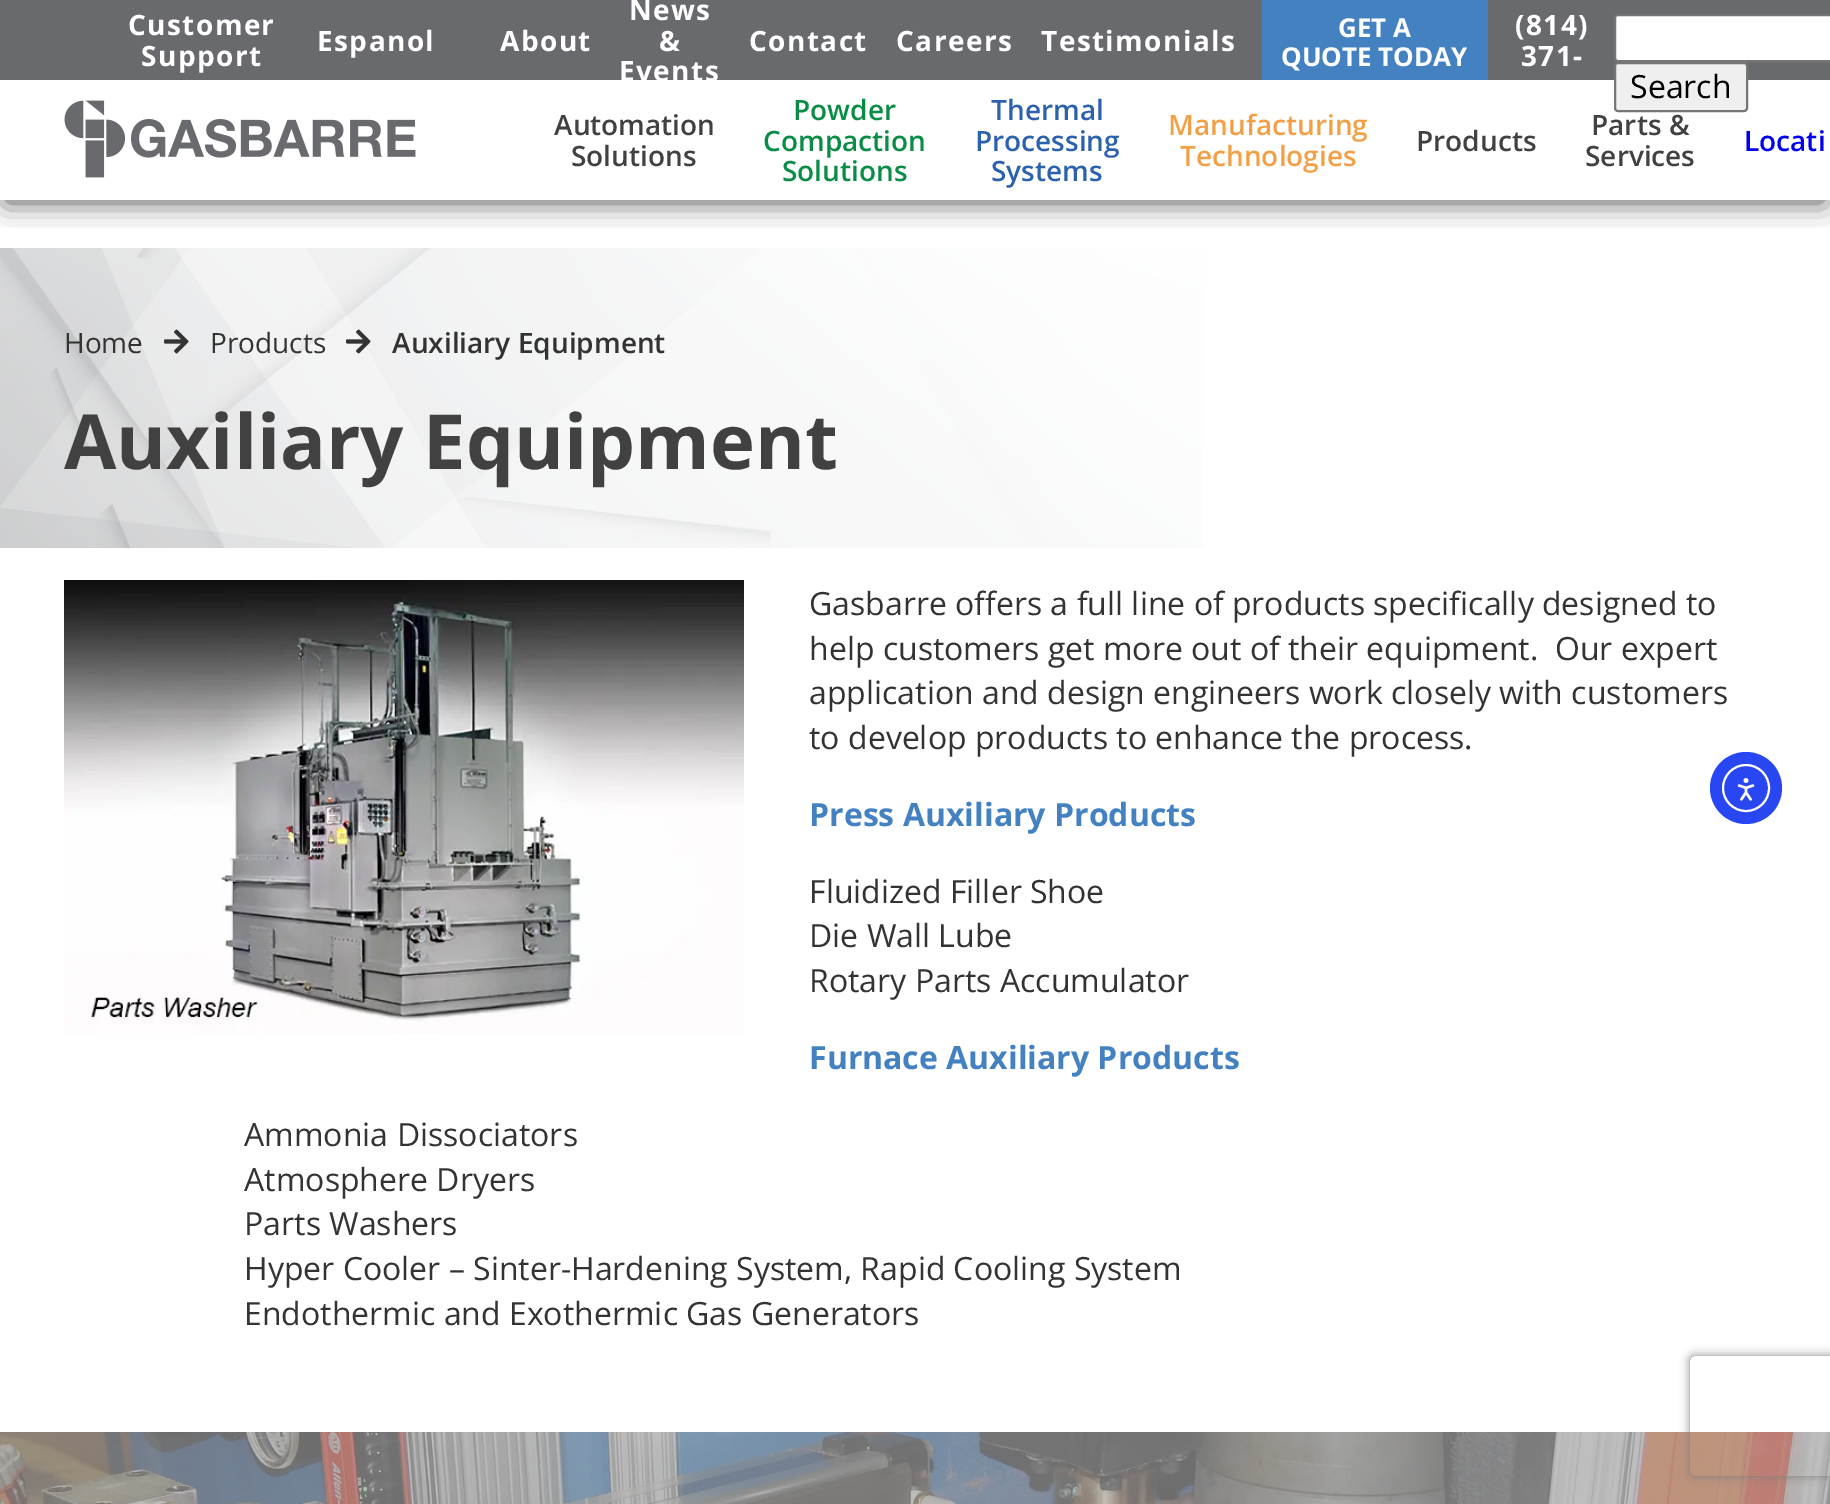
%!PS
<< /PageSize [1830 1504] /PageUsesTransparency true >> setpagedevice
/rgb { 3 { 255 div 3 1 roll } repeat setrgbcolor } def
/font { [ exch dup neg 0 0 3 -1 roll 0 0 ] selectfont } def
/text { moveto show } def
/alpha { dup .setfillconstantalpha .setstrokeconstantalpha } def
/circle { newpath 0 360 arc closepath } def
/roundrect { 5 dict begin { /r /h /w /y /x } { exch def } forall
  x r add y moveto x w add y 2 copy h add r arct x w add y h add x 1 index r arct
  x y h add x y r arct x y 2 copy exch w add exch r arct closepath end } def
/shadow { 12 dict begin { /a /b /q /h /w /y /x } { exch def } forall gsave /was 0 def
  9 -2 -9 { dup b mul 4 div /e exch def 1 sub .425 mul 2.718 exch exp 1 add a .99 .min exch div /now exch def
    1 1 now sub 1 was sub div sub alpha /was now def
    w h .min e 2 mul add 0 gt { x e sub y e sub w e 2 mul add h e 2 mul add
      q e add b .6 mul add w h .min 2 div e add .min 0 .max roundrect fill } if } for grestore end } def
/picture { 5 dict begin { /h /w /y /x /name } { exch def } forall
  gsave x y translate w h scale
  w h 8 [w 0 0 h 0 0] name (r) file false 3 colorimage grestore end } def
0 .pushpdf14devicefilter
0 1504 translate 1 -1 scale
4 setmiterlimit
255 255 255 rgb
0 0 1830 1504 rectfill
gsave
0 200 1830 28 rectclip
0 0 0 rgb
6 14 1818 188 0 14 0.68 shadow
grestore
105 106 109 rgb
0 0 1830 80 rectfill
67 129 193 rgb
1262 0 226 80 rectfill
255 255 255 rgb
1615 15 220 46 3 roundrect gsave fill grestore
118 118 118 rgb
2 setlinewidth
stroke
239 239 239 rgb
1615 63 132 48 3 roundrect gsave fill grestore
118 118 118 rgb
stroke
(img_01.rgb) 64 100 352 78 picture
(img_02.rgb) 0 248 1203 300 picture
(img_03.rgb) 164 329 25 25 picture
(img_04.rgb) 346 329 25 25 picture
(img_05.rgb) 64 580 680 454 picture
40 71 243 rgb
1746 788 36 circle fill
255 255 255 rgb
1746 788 23 circle stroke
(img_06.rgb) 1737 778 18 23 picture
(img_07.rgb) 0 1432 1830 72 picture
gsave
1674 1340 moveto 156 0 rlineto 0 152 rlineto -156 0 rlineto closepath 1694 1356 moveto 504 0 rlineto 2 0 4 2 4 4 rcurveto 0 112 rlineto 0 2 -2 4 -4 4 rcurveto -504 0 rlineto -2 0 -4 -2 -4 -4 rcurveto 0 -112 rlineto 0 -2 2 -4 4 -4 rcurveto closepath eoclip newpath
128 128 128 rgb
1690 1356 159 120 4 5 1 shadow
grestore
/OpenSans-Bold 28 font
128 35 moveto 1.4 0 (Customer) ashow
141 66 moveto 1.4 0 (Support) ashow
317 51 moveto 1.4 0 (Espanol) ashow
500 51 moveto 1.4 0 (About) ashow
629 20 moveto 1.4 0 (News) ashow
659 51 moveto 1.4 0 (&) ashow
619 81 moveto 1.4 0 (Events) ashow
749 51 moveto 1.4 0 (Contact) ashow
896 51 moveto 1.4 0 (Careers) ashow
1041 51 moveto 1.4 0 (Testimonials) ashow
/OpenSans-Bold 26 font
(GET A) 1338 37 text
(QUOTE TODAY) 1281 66 text
/OpenSans-Bold 28 font
1515 35 moveto 1.4 0 (\(814\)) ashow
1521 66 moveto 1.4 0 (371-) ashow
/OpenSans-Regular 32 font
0 0 0 rgb
(Search) 1630 98 text
/OpenSans-SemiBold 28 font
65 65 65 rgb
(Automation) 554 135 text
(Solutions) 571 166 text
9 140 69 rgb
(Powder) 793 120 text
(Compaction) 763 151 text
(Solutions) 782 181 text
44 97 173 rgb
(Thermal) 991 120 text
(Processing) 975 151 text
(Systems) 991 181 text
242 159 69 rgb
(Manufacturing) 1168 135 text
(Technologies) 1180 166 text
65 65 65 rgb
(Products) 1416 151 text
(Parts &) 1591 135 text
(Services) 1585 166 text
0 0 238 rgb
(Locati) 1744 151 text
/OpenSans-Regular 28 font
51 51 51 rgb
(Home) 64 353 text
(Products) 210 353 text
/OpenSans-SemiBold 28 font
(Auxiliary Equipment) 392 353 text
/OpenSans-Bold 76 font
65 65 65 rgb
(Auxiliary Equipment) 64 469 text
/OpenSans-Regular 32 font
51 51 51 rgb
(Gasbarre offers a full line of products specifically designed to) 809 615 text
(help customers get more out of their equipment.  Our expert) 809 660 text
(application and design engineers work closely with customers) 809 704 text
(to develop products to enhance the process.) 809 749 text
/OpenSans-Bold 32 font
67 129 193 rgb
(Press Auxiliary Products) 809 826 text
/OpenSans-Regular 32 font
51 51 51 rgb
(Fluidized Filler Shoe) 809 903 text
(Die Wall Lube) 809 947 text
(Rotary Parts Accumulator) 809 992 text
/OpenSans-Bold 32 font
67 129 193 rgb
(Furnace Auxiliary Products) 809 1069 text
/OpenSans-Regular 32 font
51 51 51 rgb
(Ammonia Dissociators) 244 1146 text
(Atmosphere Dryers) 244 1191 text
(Parts Washers) 244 1235 text
(Hyper Cooler – Sinter-Hardening System, Rapid Cooling System) 244 1280 text
(Endothermic and Exothermic Gas Generators) 244 1325 text
.poppdf14devicefilter showpage
